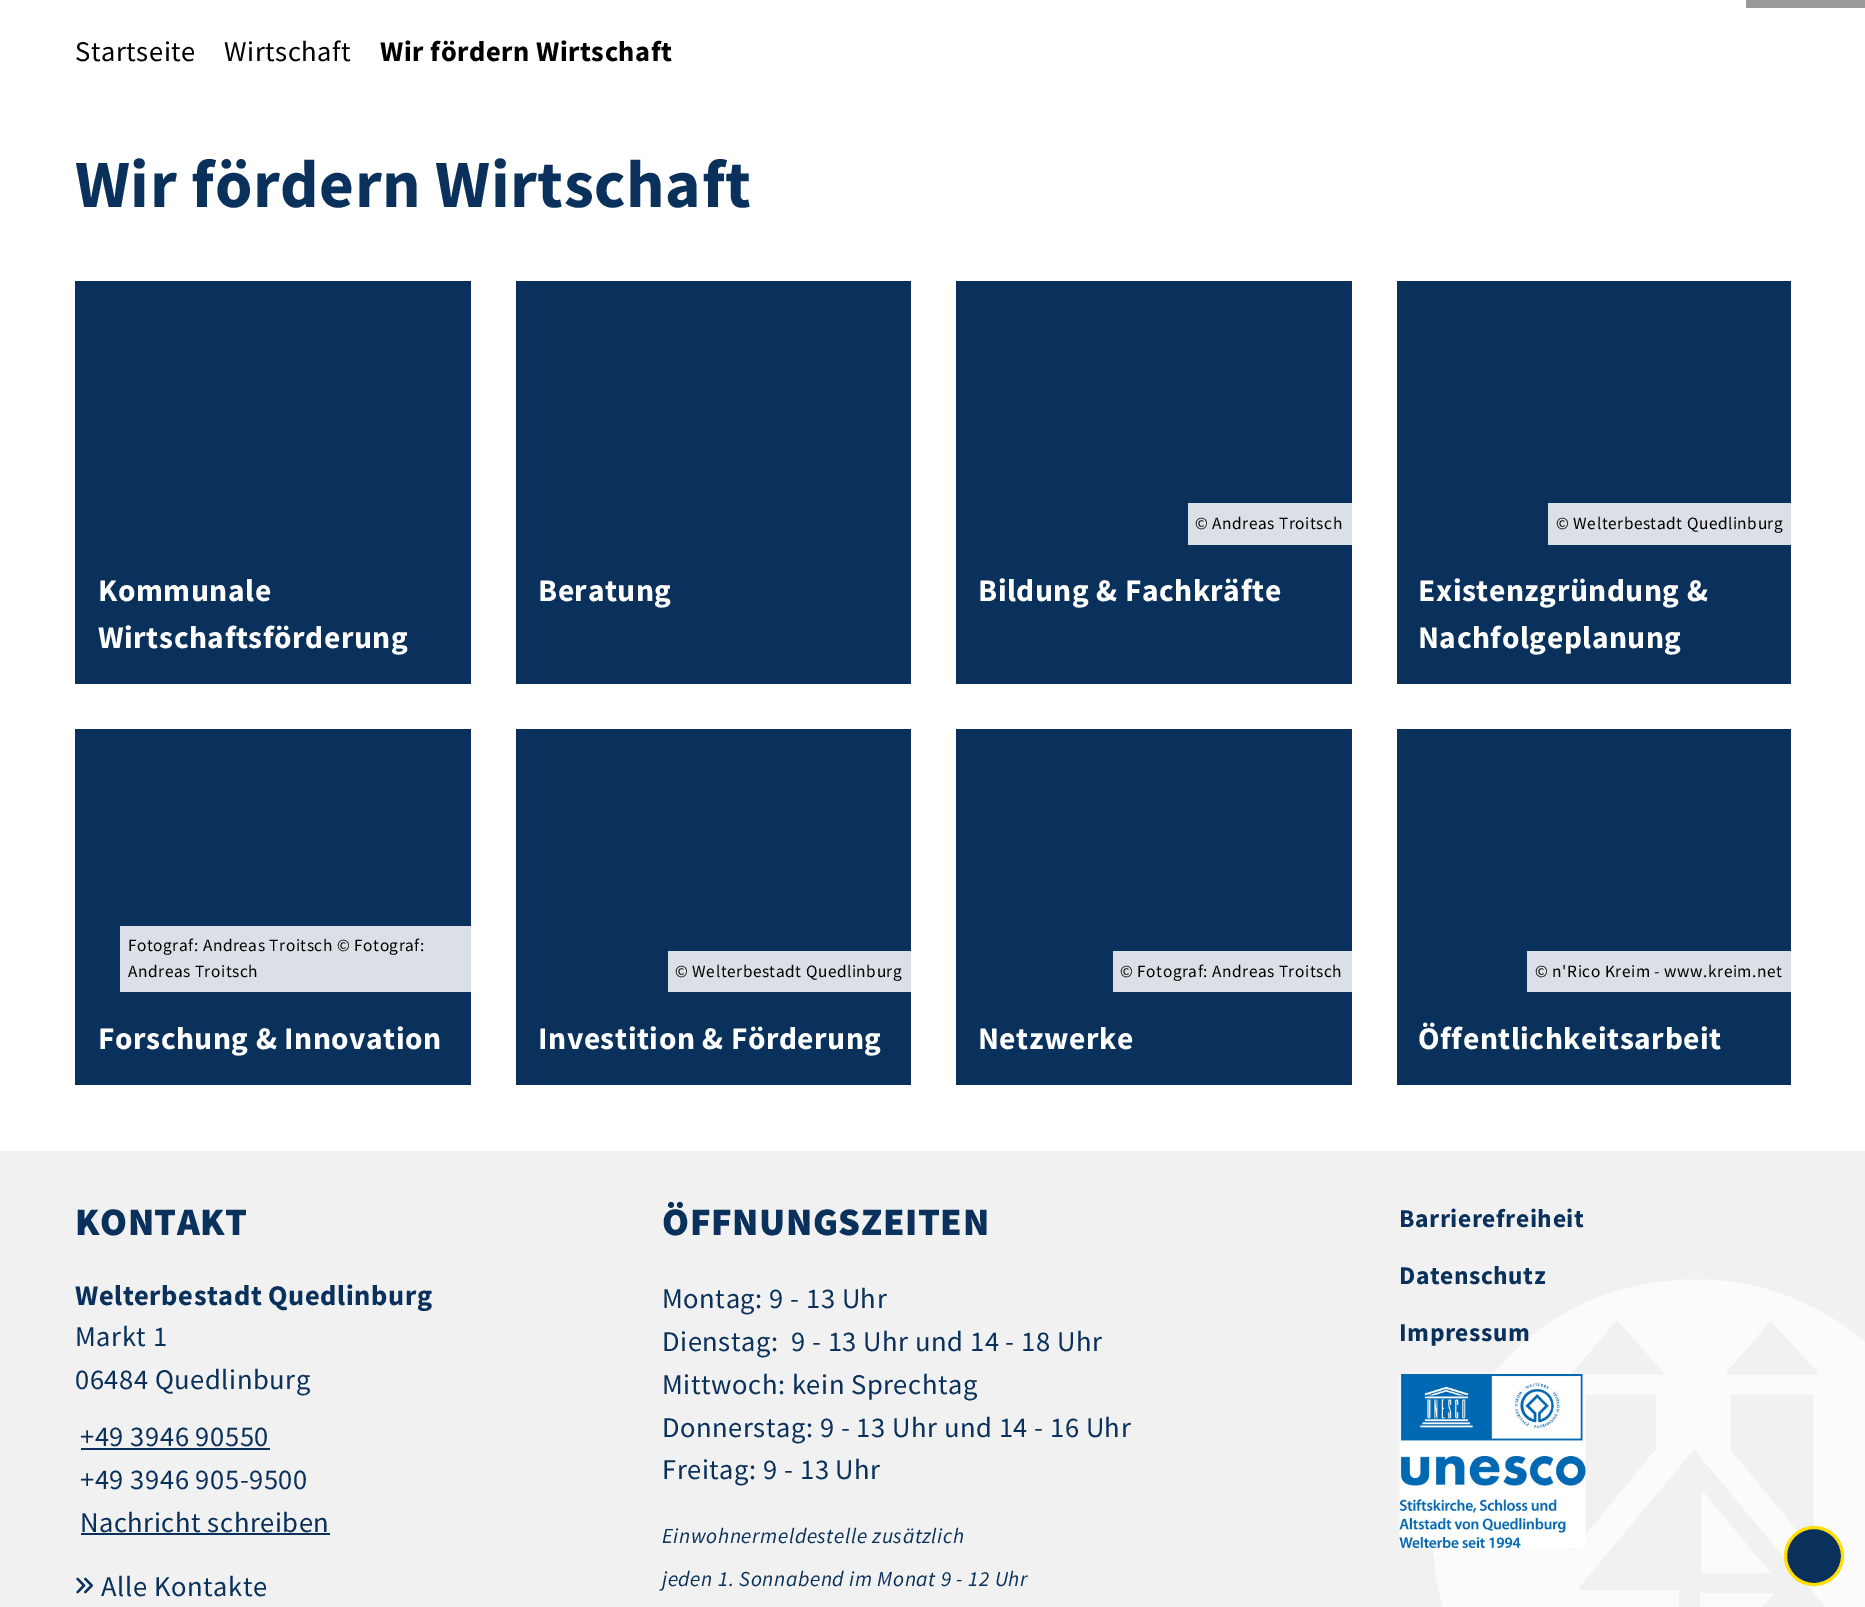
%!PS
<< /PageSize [1865 1607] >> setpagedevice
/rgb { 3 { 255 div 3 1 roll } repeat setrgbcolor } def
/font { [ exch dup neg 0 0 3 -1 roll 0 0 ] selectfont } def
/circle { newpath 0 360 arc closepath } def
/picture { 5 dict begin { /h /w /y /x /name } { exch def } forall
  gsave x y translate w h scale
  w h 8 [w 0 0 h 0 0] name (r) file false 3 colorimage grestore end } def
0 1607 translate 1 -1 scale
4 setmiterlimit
255 255 255 rgb
0 0 1865 1607 rectfill
153 153 152 rgb
1746 0 119 8 rectfill
10 49 91 rgb
75 281 396 403 rectfill
516 281 395 403 rectfill
956 281 396 403 rectfill
218 224 230 rgb
1188 503 164 42 rectfill
10 49 91 rgb
1397 281 394 403 rectfill
218 224 230 rgb
1548 503 243 42 rectfill
10 49 91 rgb
75 729 396 356 rectfill
218 224 230 rgb
120 926 351 66 rectfill
10 49 91 rgb
516 729 395 356 rectfill
218 224 230 rgb
668 951 243 41 rectfill
10 49 91 rgb
956 729 396 356 rectfill
218 224 230 rgb
1113 951 239 41 rectfill
10 49 91 rgb
1397 729 394 356 rectfill
218 224 230 rgb
1527 951 264 41 rectfill
242 241 241 rgb
0 1151 1865 456 rectfill
(img_01.rgb) 1432 1279 433 328 picture
10 49 91 rgb
1814 1556 28.5 circle gsave fill grestore
255 223 0 rgb
3 setlinewidth
stroke
10 49 91 rgb
81 1448 189 2 rectfill
81 1533 249 2 rectfill
(img_02.rgb) 76 1577 17 17 picture
(img_03.rgb) 1399 1374 187 174 picture
/SourceSansPro-Regular 28.5 font
0 0 0 rgb
75 61 moveto 0.55 0 (Startseite) ashow
224 61 moveto 0.55 0 (Wirtschaft) ashow
/SourceSansPro-Bold 28.5 font
380 61 moveto 0.55 0 (Wir fördern Wirtschaft) ashow
/SourceSansPro-Bold 67.5 font
10 49 91 rgb
75 207 moveto 0.55 0 (Wir fördern Wirtschaft) ashow
/SourceSansPro-Bold 31.5 font
255 255 255 rgb
98 601 moveto 0.55 0 (Kommunale) ashow
98 648 moveto 0.55 0 (Wirtschaftsförderung) ashow
538 601 moveto 0.55 0 (Beratung) ashow
/SourceSansPro-Regular 17.25 font
0 0 0 rgb
1195 529 moveto 0.55 0 (© Andreas Troitsch) ashow
/SourceSansPro-Bold 31.5 font
255 255 255 rgb
978 601 moveto 0.55 0 (Bildung & Fachkräfte) ashow
/SourceSansPro-Regular 17.25 font
0 0 0 rgb
1556 529 moveto 0.55 0 (© Welterbestadt Quedlinburg) ashow
/SourceSansPro-Bold 31.5 font
255 255 255 rgb
1418 601 moveto 0.55 0 (Existenzgründung &) ashow
1418 648 moveto 0.55 0 (Nachfolgeplanung) ashow
/SourceSansPro-Regular 17.25 font
0 0 0 rgb
128 951 moveto 0.55 0 (Fotograf: Andreas Troitsch © Fotograf:) ashow
128 977 moveto 0.55 0 (Andreas Troitsch) ashow
/SourceSansPro-Bold 31.5 font
255 255 255 rgb
98 1049 moveto 0.55 0 (Forschung & Innovation) ashow
/SourceSansPro-Regular 17.25 font
0 0 0 rgb
675 977 moveto 0.55 0 (© Welterbestadt Quedlinburg) ashow
/SourceSansPro-Bold 31.5 font
255 255 255 rgb
538 1049 moveto 0.55 0 (Investition & Förderung) ashow
/SourceSansPro-Regular 17.25 font
0 0 0 rgb
1120 977 moveto 0.55 0 (© Fotograf: Andreas Troitsch) ashow
/SourceSansPro-Bold 31.5 font
255 255 255 rgb
978 1049 moveto 0.55 0 (Netzwerke) ashow
/SourceSansPro-Regular 17.25 font
0 0 0 rgb
1535 977 moveto 0.55 0 (© n'Rico Kreim - www.kreim.net) ashow
/SourceSansPro-Bold 31.5 font
255 255 255 rgb
1418 1049 moveto 0.55 0 (Öffentlichkeitsarbeit) ashow
/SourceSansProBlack-Black 39 font
10 49 91 rgb
75 1235 moveto 0.55 0 (KONTAKT) ashow
/SourceSansPro-Bold 28.5 font
75 1305 moveto 0.55 0 (Welterbestadt Quedlinburg) ashow
/SourceSansPro-Regular 28.5 font
75 1346 moveto 0.55 0 (Markt 1) ashow
75 1389 moveto 0.55 0 (06484 Quedlinburg) ashow
80 1446 moveto 0.55 0 (+49 3946 90550) ashow
80 1489 moveto 0.55 0 (+49 3946 905-9500) ashow
80 1532 moveto 0.55 0 (Nachricht schreiben) ashow
101 1596 moveto 0.55 0 (Alle Kontakte) ashow
/SourceSansProBlack-Black 39 font
662 1235 moveto 0.55 0 (ÖFFNUNGSZEITEN) ashow
/SourceSansPro-Regular 28.5 font
662 1308 moveto 0.55 0 (Montag: 9 - 13 Uhr) ashow
662 1351 moveto 0.55 0 (Dienstag:  9 - 13 Uhr und 14 - 18 Uhr) ashow
662 1394 moveto 0.55 0 (Mittwoch: kein Sprechtag) ashow
662 1437 moveto 0.55 0 (Donnerstag: 9 - 13 Uhr und 14 - 16 Uhr) ashow
662 1479 moveto 0.55 0 (Freitag: 9 - 13 Uhr) ashow
/SourceSansPro-Italic 21.4 font
662 1543 moveto 0.55 0 (Einwohnermeldestelle zusätzlich) ashow
662 1586 moveto 0.55 0 (jeden 1. Sonnabend im Monat 9 - 12 Uhr) ashow
/SourceSansPro-Bold 25.5 font
1399 1227 moveto 0.55 0 (Barrierefreiheit) ashow
1399 1284 moveto 0.55 0 (Datenschutz) ashow
1399 1341 moveto 0.55 0 (Impressum) ashow
showpage
